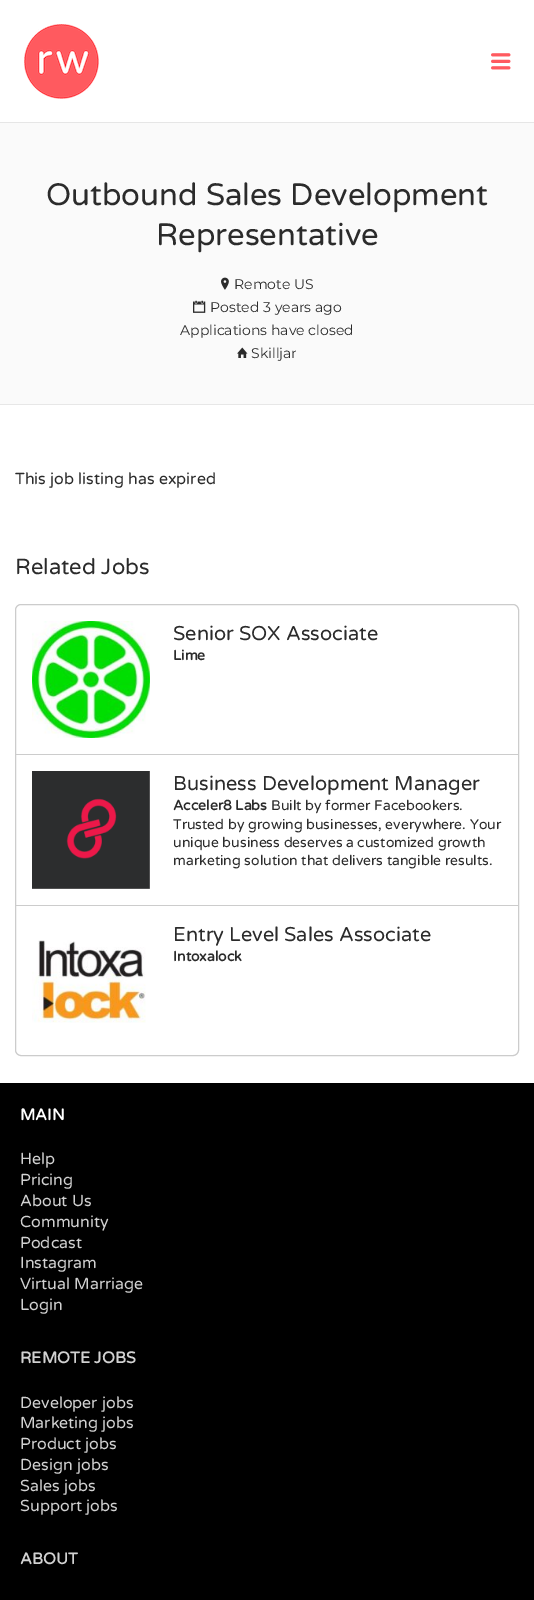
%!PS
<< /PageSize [534 1600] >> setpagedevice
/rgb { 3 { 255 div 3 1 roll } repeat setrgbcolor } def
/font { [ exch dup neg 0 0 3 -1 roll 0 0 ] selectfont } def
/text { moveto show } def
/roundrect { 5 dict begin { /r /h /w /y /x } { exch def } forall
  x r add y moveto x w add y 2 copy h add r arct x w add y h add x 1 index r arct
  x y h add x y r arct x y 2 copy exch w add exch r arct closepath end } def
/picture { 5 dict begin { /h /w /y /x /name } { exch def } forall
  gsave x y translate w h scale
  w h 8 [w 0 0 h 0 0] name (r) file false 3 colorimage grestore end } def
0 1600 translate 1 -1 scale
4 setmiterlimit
255 255 255 rgb
0 0 534 1600 rectfill
230 230 230 rgb
0 122 534 1 rectfill
(img_01.rgb) 24 24 75 75 picture
(img_02.rgb) 491 53 20 17 picture
250 250 250 rgb
0 123 534 281 rectfill
231 231 231 rgb
0 404 534 1 rectfill
(img_03.rgb) 221 277 8 13 picture
(img_04.rgb) 193 300 13 13 picture
(img_05.rgb) 237 347 11 11 picture
204 204 204 rgb
15.5 604.5 503 451 5.5 roundrect stroke
16 754 502 1 rectfill
(img_06.rgb) 32 621 118 117 picture
16 905 502 1 rectfill
(img_07.rgb) 32 771 118 118 picture
(img_08.rgb) 32 940 114 83 picture
0 0 0 rgb
0 1083 534 517 rectfill
/VarelaRound-Regular 31 font
43 43 43 rgb
(Outbound Sales Development) 46 205 text
(Representative) 156 245 text
/Montserrat-Regular 14 font
(Remote US) 234 289 text
(Posted 3 years ago) 210 312 text
(Applications have closed) 180 335 text
(Skilljar) 251 358 text
/VarelaRound-Regular 16 font
(This job listing has expired) 15 484 text
/VarelaRound-Regular 22 font
(Related Jobs) 15 574 text
/VarelaRound-Regular 20 font
(Senior SOX Associate) 173 640 text
/VarelaRound-Bold 14 font
(Lime) 173 660 text
/VarelaRound-Regular 20 font
(Business Development Manager) 173 790 text
/VarelaRound-Bold 14 font
(Acceler8 Labs) 173 810 text
/VarelaRound-Regular 14 font
(Built by former Facebookers.) 271 810 text
(Trusted by growing businesses, everywhere. Your) 173 829 text
(unique business deserves a customized growth) 173 847 text
(marketing solution that delivers tangible results.) 173 865 text
/VarelaRound-Regular 20 font
(Entry Level Sales Associate) 173 941 text
/VarelaRound-Bold 14 font
(Intoxalock) 173 961 text
/VarelaRound-Bold 16 font
255 255 255 rgb
(MAIN) 20 1120 text
/VarelaRound-Regular 16 font
209 209 209 rgb
(Help) 20 1164 text
(Pricing) 20 1185 text
(About Us) 20 1206 text
(Community) 20 1227 text
(Podcast) 20 1248 text
(Instagram) 20 1268 text
(Virtual Marriage) 20 1289 text
(Login) 20 1310 text
/VarelaRound-Bold 16 font
(REMOTE JOBS) 20 1363 text
/VarelaRound-Regular 16 font
(Developer jobs) 20 1408 text
(Marketing jobs) 20 1428 text
(Product jobs) 20 1449 text
(Design jobs) 20 1470 text
(Sales jobs) 20 1491 text
(Support jobs) 20 1511 text
/VarelaRound-Bold 16 font
(ABOUT) 20 1564 text
showpage
